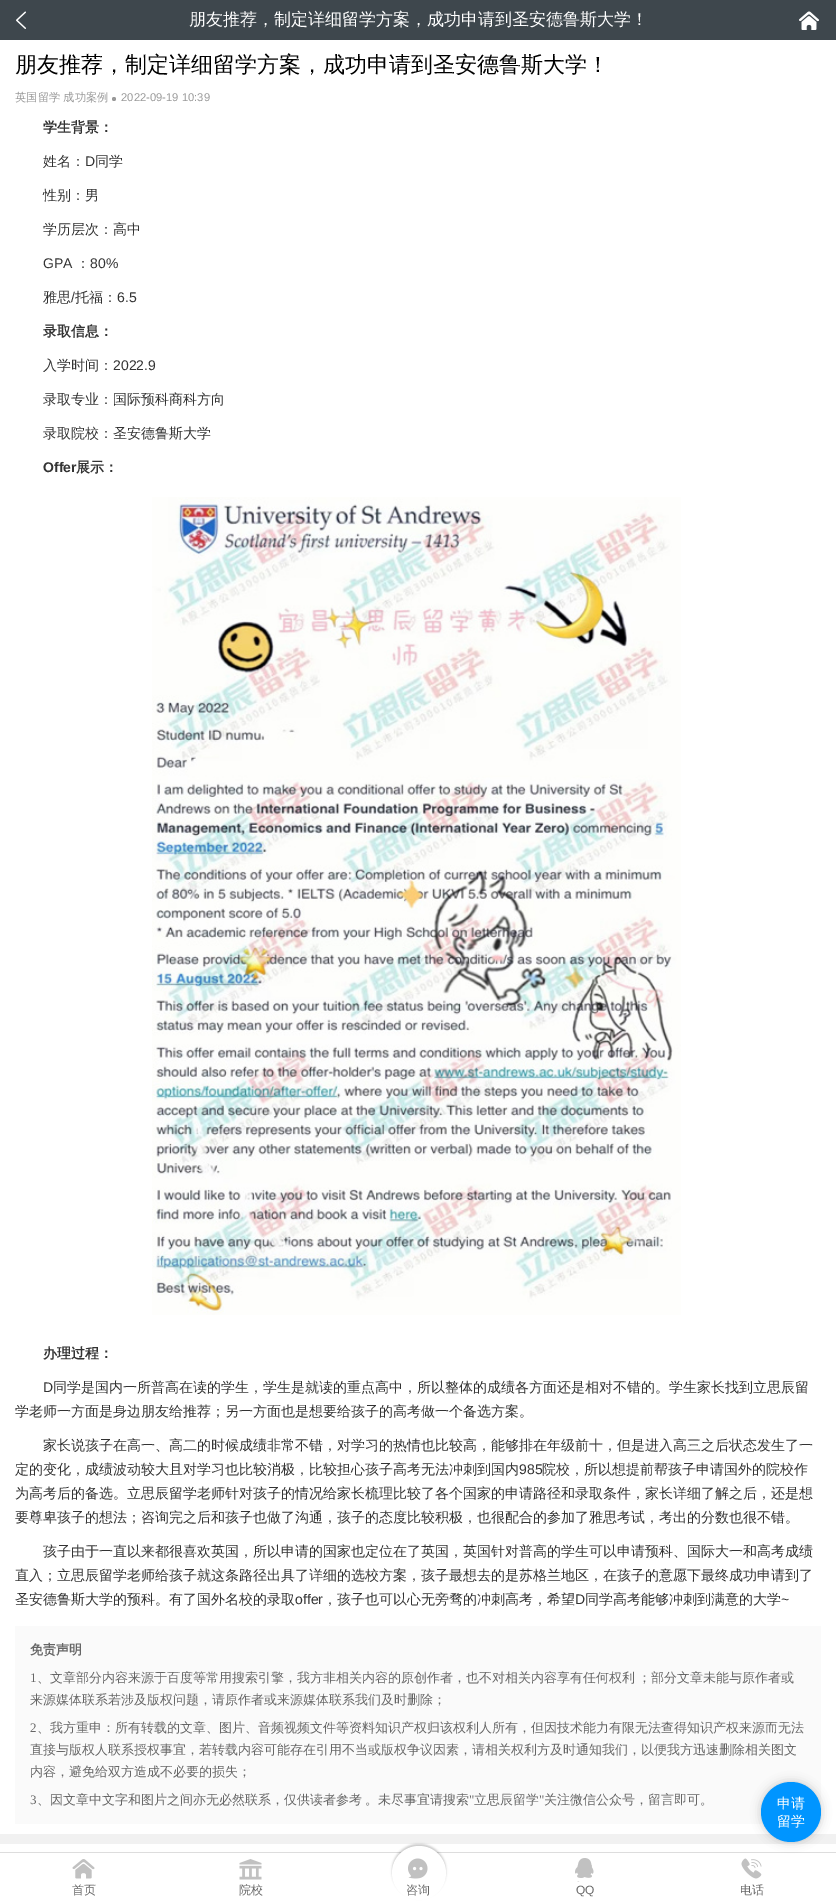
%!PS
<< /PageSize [836 1902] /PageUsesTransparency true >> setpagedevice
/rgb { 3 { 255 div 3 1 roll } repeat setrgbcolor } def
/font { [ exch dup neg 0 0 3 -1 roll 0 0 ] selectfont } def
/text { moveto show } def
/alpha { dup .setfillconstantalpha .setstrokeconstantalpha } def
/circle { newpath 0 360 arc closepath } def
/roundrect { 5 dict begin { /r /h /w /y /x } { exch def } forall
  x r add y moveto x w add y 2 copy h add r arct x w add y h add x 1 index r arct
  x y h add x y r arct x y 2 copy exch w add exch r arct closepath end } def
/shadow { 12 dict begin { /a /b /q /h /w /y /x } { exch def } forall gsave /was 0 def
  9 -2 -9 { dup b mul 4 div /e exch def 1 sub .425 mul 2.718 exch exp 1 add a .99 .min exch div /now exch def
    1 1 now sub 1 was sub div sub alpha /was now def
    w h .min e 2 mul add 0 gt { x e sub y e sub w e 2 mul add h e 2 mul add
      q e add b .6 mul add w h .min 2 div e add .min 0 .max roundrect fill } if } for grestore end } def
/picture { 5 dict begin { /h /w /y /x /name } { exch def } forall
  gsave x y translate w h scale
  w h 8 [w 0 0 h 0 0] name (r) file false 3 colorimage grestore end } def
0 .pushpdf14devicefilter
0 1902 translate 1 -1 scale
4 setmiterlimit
62 71 77 rgb
0 0 836 1902 rectfill
(img_01.rgb) 16 11 10 18 picture
(img_02.rgb) 799 11 20 19 picture
241 241 241 rgb
0 1834 836 10 rectfill
255 255 255 rgb
0 40 836 1794 rectfill
153 153 153 rgb
114 99 2 circle fill
(img_03.rgb) 152 497 529 818 picture
250 250 250 rgb
15 1626 806 198 rectfill
255 255 255 rgb
0 1844 836 8 rectfill
0 1853 836 49 rectfill
221 221 221 rgb
0 1852 836 1 rectfill
0 0 0 rgb
761 1782 60 60 30 5 0.2 shadow
0 149 255 rgb
791 1812 30 circle fill
(img_04.rgb) 72 1859 23 20 picture
(img_05.rgb) 239 1859 23 21 picture
0 0 0 rgb
392 1844 54 54 27 1 0.2 shadow
255 255 255 rgb
419 1873 27 circle fill
(img_06.rgb) 408 1858 20 21 picture
(img_07.rgb) 575 1858 19 24 picture
(img_08.rgb) 741 1858 21 21 picture
/WenQuanYiZenHei-Medium 17 font
(朋友推荐，制定详细留学方案，成功申请到圣安德鲁斯大学！) 189 25 text
/WenQuanYiZenHei-Medium 22 font
0 0 0 rgb
(朋友推荐，制定详细留学方案，成功申请到圣安德鲁斯大学！) 15 72 text
/WenQuanYiZenHei-Medium 11.25 font
153 153 153 rgb
(英国留学 成功案例) 15 101 text
/LiberationSans-Regular 11.25 font
(2022-09-19 10:39) 121 101 text
/WenQuanYiZenHei-Bold 14 font
51 51 51 rgb
(学生背景：) 43 132 text
/WenQuanYiZenHei-Medium 14 font
(姓名：) 43 166 text
/LiberationSans-Regular 14 font
(D) 85 166 text
/WenQuanYiZenHei-Medium 14 font
(同学) 95 166 text
(性别：男) 43 200 text
(学历层次：高中) 43 234 text
/LiberationSans-Regular 14 font
(GPA) 43 268 text
/WenQuanYiZenHei-Medium 14 font
(：) 76 268 text
/LiberationSans-Regular 14 font
(80%) 90 268 text
/WenQuanYiZenHei-Medium 14 font
(雅思) 43 302 text
/LiberationSans-Regular 14 font
(/) 71 302 text
/WenQuanYiZenHei-Medium 14 font
(托福：) 75 302 text
/LiberationSans-Regular 14 font
(6.5) 117 302 text
/WenQuanYiZenHei-Bold 14 font
(录取信息：) 43 336 text
/WenQuanYiZenHei-Medium 14 font
(入学时间：) 43 370 text
/LiberationSans-Regular 14 font
(2022.9) 113 370 text
/WenQuanYiZenHei-Medium 14 font
(录取专业：国际预科商科方向) 43 404 text
(录取院校：圣安德鲁斯大学) 43 438 text
/LiberationSans-Bold 14 font
(Offer) 43 472 text
/WenQuanYiZenHei-Bold 14 font
(展示：) 76 472 text
(办理过程：) 43 1358 text
/LiberationSans-Regular 14 font
(D) 43 1392 text
/WenQuanYiZenHei-Medium 14 font
(同学是国内一所普高在读的学生，学生是就读的重点高中，所以整体的成绩各方面还是相对不错的。学生家长找到立思辰留) 53 1392 text
(学老师一方面是身边朋友给推荐；另一方面也是想要给孩子的高考做一个备选方案。) 15 1416 text
(家长说孩子在高一、高二的时候成绩非常不错，对学习的热情也比较高，能够排在年级前十，但是进入高三之后状态发生了一) 43 1450 text
(定的变化，成绩波动较大且对学习也比较消极，比较担心孩子高考无法冲刺到国内) 15 1474 text
/LiberationSans-Regular 14 font
(985) 519 1474 text
/WenQuanYiZenHei-Medium 14 font
(院校，所以想提前帮孩子申请国外的院校作) 542 1474 text
(为高考后的备选。立思辰留学老师针对孩子的情况给家长梳理比较了各个国家的申请路径和录取条件，家长详细了解之后，还是想) 15 1498 text
(要尊卑孩子的想法；咨询完之后和孩子也做了沟通，孩子的态度比较积极，也很配合的参加了雅思考试，考出的分数也很不错。) 15 1522 text
(孩子由于一直以来都很喜欢英国，所以申请的国家也定位在了英国，英国针对普高的学生可以申请预科、国际大一和高考成绩) 43 1556 text
(直入；立思辰留学老师给孩子就这条路径出具了详细的选校方案，孩子最想去的是苏格兰地区，在孩子的意愿下最终成功申请到了) 15 1580 text
(圣安德鲁斯大学的预科。有了国外名校的录取) 15 1604 text
/LiberationSans-Regular 14 font
(offer) 295 1604 text
/WenQuanYiZenHei-Medium 14 font
(，孩子也可以心无旁骛的冲刺高考，希望) 323 1604 text
/LiberationSans-Regular 14 font
(D) 575 1604 text
/WenQuanYiZenHei-Medium 14 font
(同学高考能够冲刺到满意的大学) 585 1604 text
/LiberationSans-Regular 14 font
(~) 781 1604 text
/WenQuanYiZenHei-Bold 13 font
102 102 102 rgb
(免责声明) 30 1654 text
/LiberationSerif-Regular 13 font
(1) 30 1682 text
/WenQuanYiZenHei-Medium 13 font
37 1682 moveto -1 0 32 (、文章部分内容来源于百度等常用搜索引擎，我方非相关内容的原创作者，也不对相关内容享有任何权利 ；部分文章未能与原作者或) widthshow
(来源媒体联系若涉及版权问题，请原作者或来源媒体联系我们及时删除；) 30 1704 text
/LiberationSerif-Regular 13 font
(2) 30 1732 text
/WenQuanYiZenHei-Medium 13 font
(、我方重申：所有转载的文章、图片、音频视频文件等资料知识产权归该权利人所有，但因技术能力有限无法查得知识产权来源而无法) 37 1732 text
(直接与版权人联系授权事宜，若转载内容可能存在引用不当或版权争议因素，请相关权利方及时通知我们，以便我方迅速删除相关图文) 30 1754 text
(内容，避免给双方造成不必要的损失；) 30 1776 text
/LiberationSerif-Regular 13 font
(3) 30 1804 text
/WenQuanYiZenHei-Medium 13 font
37 1804 moveto -1 0 32 (、因文章中文字和图片之间亦无必然联系，仅供读者参考 。未尽事宜请搜索) widthshow
/LiberationSerif-Regular 13 font
(") 469 1804 text
/WenQuanYiZenHei-Medium 13 font
(立思辰留学) 474 1804 text
/LiberationSerif-Regular 13 font
(") 539 1804 text
/WenQuanYiZenHei-Medium 13 font
(关注微信公众号，留言即可。) 544 1804 text
/WenQuanYiZenHei-Medium 14 font
255 255 255 rgb
(申请) 777 1808 text
(留学) 777 1826 text
/WenQuanYiZenHei-Medium 12 font
102 102 102 rgb
(首页) 72 1894 text
(院校) 239 1894 text
(咨询) 406 1894 text
/LiberationSans-Regular 12 font
(QQ) 576 1894 text
/WenQuanYiZenHei-Medium 12 font
(电话) 740 1894 text
.poppdf14devicefilter showpage
